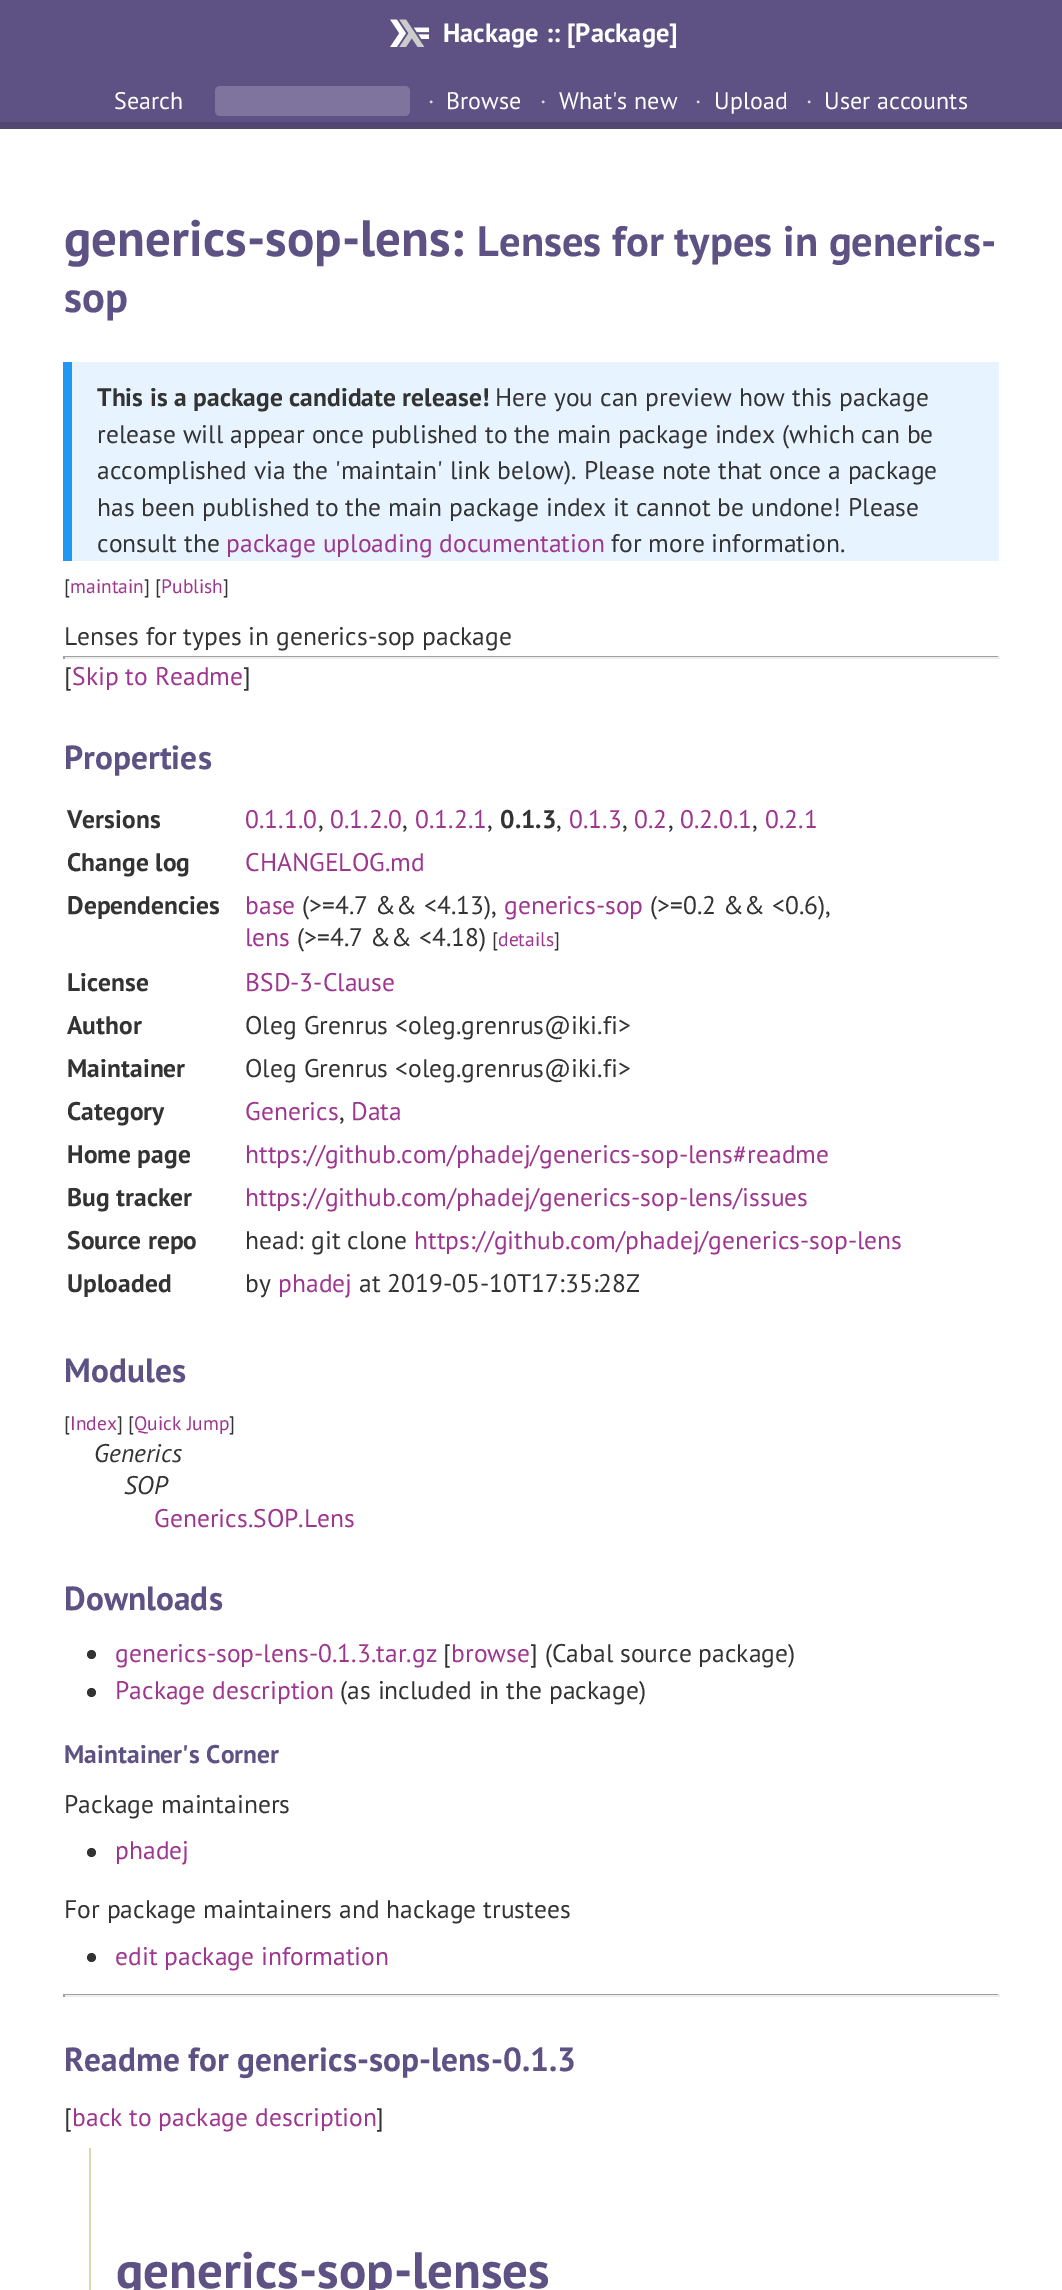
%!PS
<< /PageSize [1062 2290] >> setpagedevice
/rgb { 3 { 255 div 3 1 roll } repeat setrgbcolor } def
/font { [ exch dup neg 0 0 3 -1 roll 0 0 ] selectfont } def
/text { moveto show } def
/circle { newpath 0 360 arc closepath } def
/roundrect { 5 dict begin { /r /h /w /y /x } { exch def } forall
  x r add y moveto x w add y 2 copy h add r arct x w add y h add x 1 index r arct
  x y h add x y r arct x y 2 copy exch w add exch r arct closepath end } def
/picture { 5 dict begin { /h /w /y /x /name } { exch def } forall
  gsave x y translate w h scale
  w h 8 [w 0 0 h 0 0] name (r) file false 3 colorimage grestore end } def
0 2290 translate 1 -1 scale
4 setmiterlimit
255 255 255 rgb
0 0 1062 2290 rectfill
94 81 132 rgb
0 0 1062 122 rectfill
82 70 115 rgb
0 122 1062 7 rectfill
(img_01.rgb) 390 19 39 28 picture
126 116 157 rgb
215 86 195 30 5 roundrect fill
231 243 254 rgb
72 362 927 199 rectfill
33 150 243 rgb
63 362 9 199 rectfill
159 159 159 rgb
63 656 936 1 rectfill
238 238 238 rgb
998 656 2 3 rectfill
63 657 936 2 rectfill
159 159 159 rgb
63 656 2 3 rectfill
51 51 51 rgb
91.5 1654.5 4.5 circle fill
91.5 1692.5 4.5 circle fill
91.5 1852.5 4.5 circle fill
91.5 1957.5 4.5 circle fill
159 159 159 rgb
63 1994 936 1 rectfill
238 238 238 rgb
998 1994 2 3 rectfill
63 1995 936 2 rectfill
159 159 159 rgb
63 1994 2 3 rectfill
216 215 173 rgb
89 2148 2 142 rectfill
/PTSans-Bold 26.5 font
255 255 255 rgb
443 42 moveto 0.05 0 (Hackage :: [Package]) ashow
/PTSans-Regular 24 font
(Search) 114 109 text
221 221 221 rgb
428 109 moveto 0.05 0 (·) ashow
255 255 255 rgb
446 109 moveto 0.05 0 (Browse) ashow
221 221 221 rgb
540 109 moveto 0.05 0 (·) ashow
255 255 255 rgb
559 109 moveto 0.05 0 (What's new) ashow
221 221 221 rgb
695 109 moveto 0.05 0 (·) ashow
255 255 255 rgb
714 109 moveto 0.05 0 (Upload) ashow
221 221 221 rgb
806 109 moveto 0.05 0 (·) ashow
255 255 255 rgb
824 109 moveto 0.05 0 (User accounts) ashow
/PTSans-Bold 51 font
94 81 132 rgb
64 256 moveto 0.05 0 (generics-sop-lens:) ashow
/PTSans-Bold 42.5 font
477 256 moveto 0.05 0 (Lenses for types in generics-) ashow
64 312 moveto 0.05 0 (sop) ashow
/PTSans-Bold 25.5 font
51 51 51 rgb
97 406 moveto 0.05 0 (This is a package candidate release!) ashow
/PTSans-Regular 25.5 font
495 406 moveto 0.05 0 (Here you can preview how this package) ashow
97 443 moveto 0.05 0 (release will appear once published to the main package index \(which can be) ashow
97 479 moveto 0.05 0 (accomplished via the 'maintain' link below\). Please note that once a package) ashow
97 516 moveto 0.05 0 (has been published to the main package index it cannot be undone! Please) ashow
97 552 moveto 0.05 0 (consult the) ashow
158 53 143 rgb
226 552 moveto 0.05 0 (package uploading documentation) ashow
51 51 51 rgb
611 552 moveto 0.05 0 (for more information.) ashow
/PTSans-Regular 19.5 font
64 593 moveto 0.05 0 ([) ashow
158 53 143 rgb
70 593 moveto 0.05 0 (maintain) ashow
51 51 51 rgb
144 593 moveto 0.05 0 (] [) ashow
158 53 143 rgb
161 593 moveto 0.05 0 (Publish) ashow
51 51 51 rgb
223 593 moveto 0.05 0 (]) ashow
/PTSans-Regular 25.5 font
64 645 moveto 0.05 0 (Lenses for types in generics-sop package) ashow
64 685 moveto 0.05 0 ([) ashow
158 53 143 rgb
72 685 moveto 0.05 0 (Skip to Readme) ashow
51 51 51 rgb
243 685 moveto 0.05 0 (]) ashow
/PTSans-Bold 33.4 font
94 81 132 rgb
64 769 moveto 0.05 0 (Properties) ashow
/PTSans-Bold 25.5 font
51 51 51 rgb
67 828 moveto 0.05 0 (Versions) ashow
/PTSans-Regular 25.5 font
158 53 143 rgb
245 828 moveto 0.05 0 (0.1.1.0) ashow
51 51 51 rgb
318 828 moveto 0.05 0 (,) ashow
158 53 143 rgb
330 828 moveto 0.05 0 (0.1.2.0) ashow
51 51 51 rgb
402 828 moveto 0.05 0 (,) ashow
158 53 143 rgb
415 828 moveto 0.05 0 (0.1.2.1) ashow
51 51 51 rgb
487 828 moveto 0.05 0 (,) ashow
/PTSans-Bold 25.5 font
500 828 moveto 0.05 0 (0.1.3) ashow
/PTSans-Regular 25.5 font
556 828 moveto 0.05 0 (,) ashow
158 53 143 rgb
569 828 moveto 0.05 0 (0.1.3) ashow
51 51 51 rgb
622 828 moveto 0.05 0 (,) ashow
158 53 143 rgb
634 828 moveto 0.05 0 (0.2) ashow
51 51 51 rgb
668 828 moveto 0.05 0 (,) ashow
158 53 143 rgb
680 828 moveto 0.05 0 (0.2.0.1) ashow
51 51 51 rgb
752 828 moveto 0.05 0 (,) ashow
158 53 143 rgb
765 828 moveto 0.05 0 (0.2.1) ashow
/PTSans-Bold 25.5 font
51 51 51 rgb
67 871 moveto 0.05 0 (Change log) ashow
/PTSans-Regular 25.5 font
158 53 143 rgb
245 871 moveto 0.05 0 (CHANGELOG.md) ashow
/PTSans-Bold 25.5 font
51 51 51 rgb
67 914 moveto 0.05 0 (Dependencies) ashow
/PTSans-Regular 25.5 font
158 53 143 rgb
245 914 moveto 0.05 0 (base) ashow
51 51 51 rgb
302 914 moveto 0.05 0 (\(>=4.7 && <4.13\),) ashow
158 53 143 rgb
504 914 moveto 0.05 0 (generics-sop) ashow
51 51 51 rgb
650 914 moveto 0.05 0 (\(>=0.2 && <0.6\),) ashow
158 53 143 rgb
245 946 moveto 0.05 0 (lens) ashow
51 51 51 rgb
297 946 moveto 0.05 0 (\(>=4.7 && <4.18\)) ashow
/PTSans-Regular 19.5 font
492 946 moveto 0.05 0 ([) ashow
158 53 143 rgb
498 946 moveto 0.05 0 (details) ashow
51 51 51 rgb
554 946 moveto 0.05 0 (]) ashow
/PTSans-Bold 25.5 font
67 991 moveto 0.05 0 (License) ashow
/PTSans-Regular 25.5 font
158 53 143 rgb
245 991 moveto 0.05 0 (BSD-3-Clause) ashow
/PTSans-Bold 25.5 font
51 51 51 rgb
67 1034 moveto 0.05 0 (Author) ashow
/PTSans-Regular 25.5 font
245 1034 moveto 0.05 0 (Oleg Grenrus <oleg.grenrus@iki.fi>) ashow
/PTSans-Bold 25.5 font
67 1077 moveto 0.05 0 (Maintainer) ashow
/PTSans-Regular 25.5 font
245 1077 moveto 0.05 0 (Oleg Grenrus <oleg.grenrus@iki.fi>) ashow
/PTSans-Bold 25.5 font
67 1120 moveto 0.05 0 (Category) ashow
/PTSans-Regular 25.5 font
158 53 143 rgb
245 1120 moveto 0.05 0 (Generics) ashow
51 51 51 rgb
339 1120 moveto 0.05 0 (,) ashow
158 53 143 rgb
351 1120 moveto 0.05 0 (Data) ashow
/PTSans-Bold 25.5 font
51 51 51 rgb
67 1163 moveto 0.05 0 (Home page) ashow
/PTSans-Regular 25.5 font
158 53 143 rgb
245 1163 moveto 0.05 0 (https://github.com/phadej/generics-sop-lens#readme) ashow
/PTSans-Bold 25.5 font
51 51 51 rgb
67 1206 moveto 0.05 0 (Bug tracker) ashow
/PTSans-Regular 25.5 font
158 53 143 rgb
245 1206 moveto 0.05 0 (https://github.com/phadej/generics-sop-lens/issues) ashow
/PTSans-Bold 25.5 font
51 51 51 rgb
67 1249 moveto 0.05 0 (Source repo) ashow
/PTSans-Regular 25.5 font
245 1249 moveto 0.05 0 (head: git clone) ashow
158 53 143 rgb
414 1249 moveto 0.05 0 (https://github.com/phadej/generics-sop-lens) ashow
/PTSans-Bold 25.5 font
51 51 51 rgb
67 1292 moveto 0.05 0 (Uploaded) ashow
/PTSans-Regular 25.5 font
245 1292 moveto 0.05 0 (by) ashow
158 53 143 rgb
278 1292 moveto 0.05 0 (phadej) ashow
51 51 51 rgb
359 1292 moveto 0.05 0 (at 2019-05-10T17:35:28Z) ashow
/PTSans-Bold 33.4 font
94 81 132 rgb
64 1382 moveto 0.05 0 (Modules) ashow
/PTSans-Regular 19.5 font
51 51 51 rgb
64 1430 moveto 0.05 0 ([) ashow
158 53 143 rgb
70 1430 moveto 0.05 0 (Index) ashow
51 51 51 rgb
117 1430 moveto 0.05 0 (] [) ashow
158 53 143 rgb
134 1430 moveto 0.05 0 (Quick Jump) ashow
51 51 51 rgb
229 1430 moveto 0.05 0 (]) ashow
/PTSans-Italic 25.5 font
94 1462 moveto 0.05 0 (Generics) ashow
124 1494 moveto 0.05 0 (SOP) ashow
/PTSans-Regular 25.5 font
158 53 143 rgb
154 1527 moveto 0.05 0 (Generics.SOP.Lens) ashow
/PTSans-Bold 33.4 font
94 81 132 rgb
64 1610 moveto 0.05 0 (Downloads) ashow
/PTSans-Regular 25.5 font
158 53 143 rgb
115 1662 moveto 0.05 0 (generics-sop-lens-0.1.3.tar.gz) ashow
51 51 51 rgb
443 1662 moveto 0.05 0 ([) ashow
158 53 143 rgb
451 1662 moveto 0.05 0 (browse) ashow
51 51 51 rgb
530 1662 moveto 0.05 0 (] \(Cabal source package\)) ashow
158 53 143 rgb
115 1699 moveto 0.05 0 (Package description) ashow
51 51 51 rgb
340 1699 moveto 0.05 0 (\(as included in the package\)) ashow
/PTSans-Bold 25.5 font
94 81 132 rgb
64 1763 moveto 0.05 0 (Maintainer's Corner) ashow
/PTSans-Regular 25.5 font
51 51 51 rgb
64 1813 moveto 0.05 0 (Package maintainers) ashow
158 53 143 rgb
115 1859 moveto 0.05 0 (phadej) ashow
51 51 51 rgb
64 1918 moveto 0.05 0 (For package maintainers and hackage trustees) ashow
158 53 143 rgb
115 1965 moveto 0.05 0 (edit package information) ashow
/PTSans-Bold 33.4 font
94 81 132 rgb
64 2071 moveto 0.05 0 (Readme for generics-sop-lens-0.1.3) ashow
/PTSans-Regular 25.5 font
51 51 51 rgb
64 2126 moveto 0.05 0 ([) ashow
158 53 143 rgb
72 2126 moveto 0.05 0 (back to package description) ashow
51 51 51 rgb
376 2126 moveto 0.05 0 (]) ashow
/PTSans-Bold 51 font
94 81 132 rgb
116 2288 moveto 0.05 0 (generics-sop-lenses) ashow
showpage
